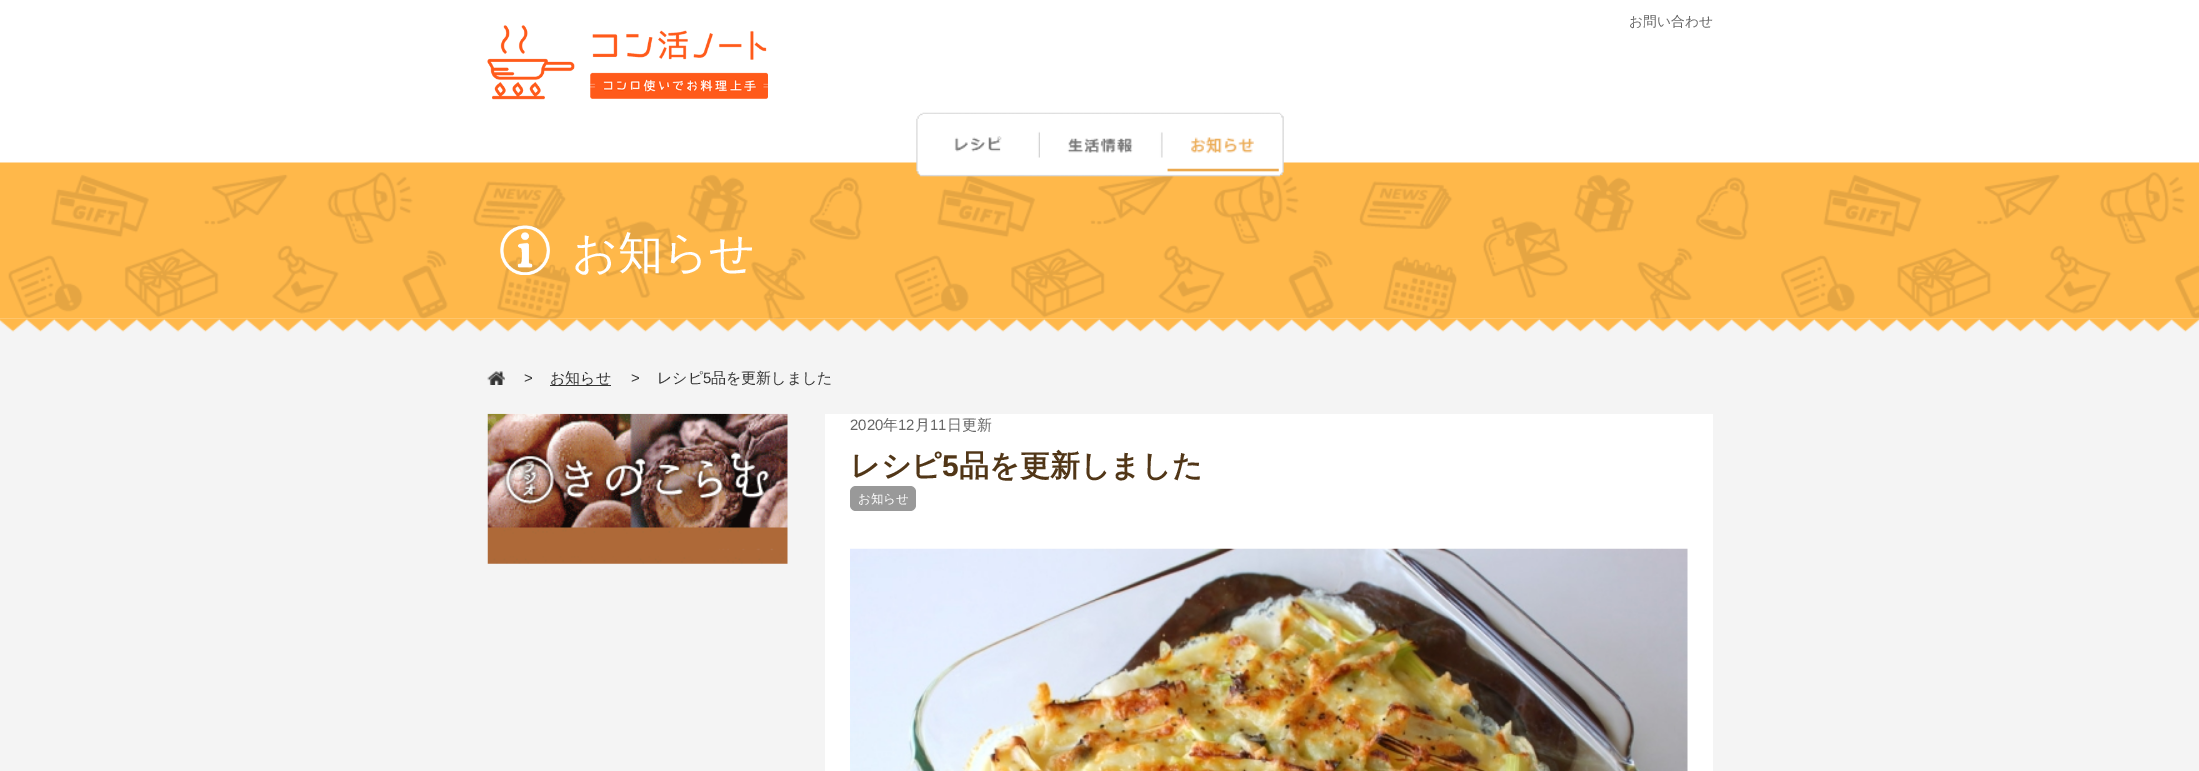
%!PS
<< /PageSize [2199 771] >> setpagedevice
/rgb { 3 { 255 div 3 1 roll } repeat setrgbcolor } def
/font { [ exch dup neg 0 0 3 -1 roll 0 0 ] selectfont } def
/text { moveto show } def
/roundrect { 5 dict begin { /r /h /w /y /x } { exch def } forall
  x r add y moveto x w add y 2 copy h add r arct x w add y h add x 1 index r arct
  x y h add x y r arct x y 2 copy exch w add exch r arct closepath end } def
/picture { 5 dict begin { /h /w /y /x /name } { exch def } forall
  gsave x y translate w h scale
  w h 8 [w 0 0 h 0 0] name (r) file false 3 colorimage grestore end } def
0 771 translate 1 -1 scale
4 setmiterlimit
255 255 255 rgb
0 0 2199 771 rectfill
(img_01.rgb) 487 25 281 75 picture
244 244 244 rgb
0 319 2199 452 rectfill
(img_07.rgb) 0 318 2199 14 picture
(img_05.rgb) 0 162 2199 157 picture
(img_02.rgb) 916 112 124 65 picture
(img_03.rgb) 1040 112 125 65 picture
(img_04.rgb) 1165 112 119 65 picture
(img_06.rgb) 500 225 50 50 picture
(img_08.rgb) 487 371 18 14 picture
51 51 51 rgb
550 385 61 1 rectfill
(img_09.rgb) 487 413 301 151 picture
255 255 255 rgb
825 414 888 357 rectfill
153 153 153 rgb
850 486 66 25 6 roundrect fill
(img_10.rgb) 850 548 838 223 picture
/WenQuanYiZenHei-Medium 13.75 font
102 102 102 rgb
(お問い合わせ) 1629 26 text
/WenQuanYiZenHei-Medium 45 font
255 255 255 rgb
(お知らせ) 572 268 text
/LiberationSans-Regular 15 font
51 51 51 rgb
(>) 524 383 text
/WenQuanYiZenHei-Medium 15 font
(お知らせ) 550 383 text
/LiberationSans-Regular 15 font
(>) 631 383 text
/WenQuanYiZenHei-Medium 15 font
(レシピ) 657 383 text
/LiberationSans-Regular 15 font
(5) 703 383 text
/WenQuanYiZenHei-Medium 15 font
(品を更新しました) 711 383 text
/LiberationSans-Regular 15 font
102 102 102 rgb
(2020) 850 430 text
/WenQuanYiZenHei-Medium 15 font
(年) 883 430 text
/LiberationSans-Regular 15 font
(12) 898 430 text
/WenQuanYiZenHei-Medium 15 font
(月) 915 430 text
/LiberationSans-Regular 15 font
(11) 930 430 text
/WenQuanYiZenHei-Medium 15 font
(日更新) 947 430 text
/WenQuanYiZenHei-Bold 30 font
81 54 23 rgb
(レシピ) 850 476 text
/LiberationSans-Bold 30 font
(5) 942 476 text
/WenQuanYiZenHei-Bold 30 font
(品を更新しました) 959 476 text
/WenQuanYiZenHei-Medium 12.5 font
255 255 255 rgb
(お知らせ) 858 503 text
showpage
